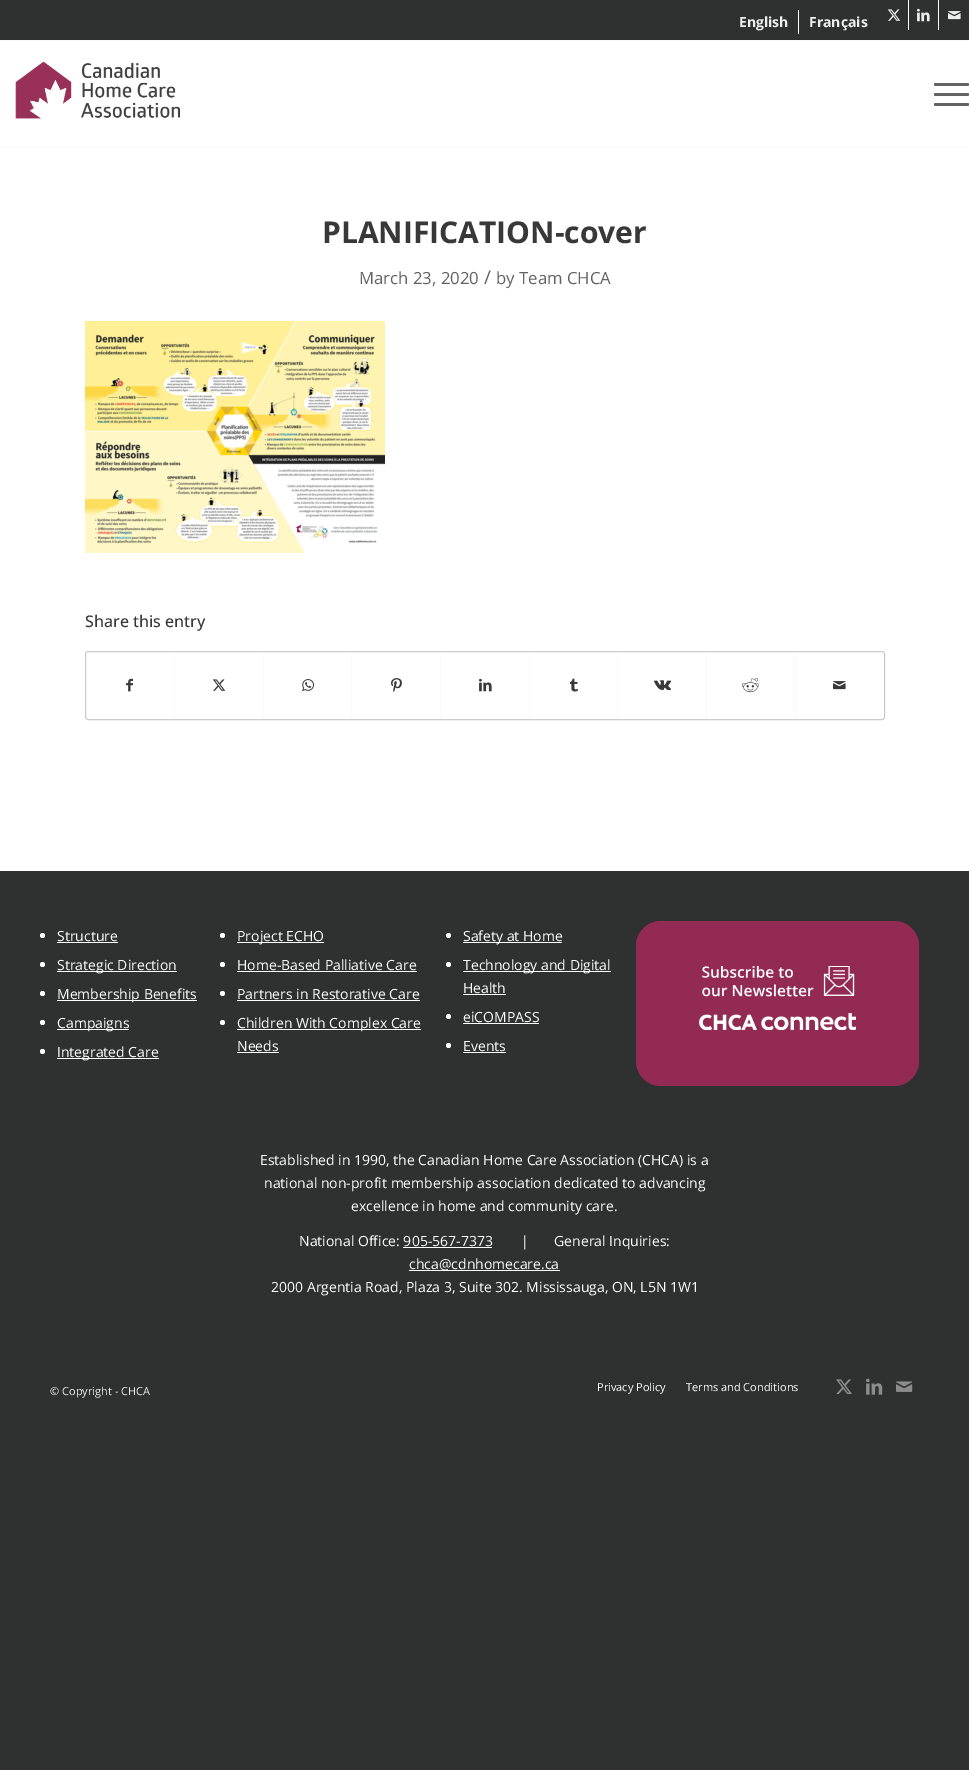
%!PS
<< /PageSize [969 1770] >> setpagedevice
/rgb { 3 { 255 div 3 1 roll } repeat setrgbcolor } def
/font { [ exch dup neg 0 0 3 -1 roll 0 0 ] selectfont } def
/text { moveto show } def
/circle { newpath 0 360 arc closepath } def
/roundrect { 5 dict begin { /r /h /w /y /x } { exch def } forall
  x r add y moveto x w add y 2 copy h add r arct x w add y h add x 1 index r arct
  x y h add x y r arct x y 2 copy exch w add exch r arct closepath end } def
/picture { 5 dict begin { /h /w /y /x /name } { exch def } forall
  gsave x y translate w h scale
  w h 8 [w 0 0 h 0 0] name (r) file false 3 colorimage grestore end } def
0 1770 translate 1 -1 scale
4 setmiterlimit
47 48 48 rgb
0 0 969 1770 rectfill
255 255 255 rgb
0 41 969 830 rectfill
248 248 248 rgb
0 40 969 1 rectfill
255 255 255 rgb
798 10 1 24 rectfill
908 0 1 30 rectfill
(img_01.rgb) 887 9 14 12 picture
938 0 1 30 rectfill
(img_02.rgb) 917 8 13 14 picture
(img_03.rgb) 948 11 13 9 picture
248 248 248 rgb
0 147 969 1 rectfill
(img_04.rgb) 15 61 166 58 picture
99 99 99 rgb
934 93 35 3 1.5 roundrect fill
934 83 35 3 1.5 roundrect fill
934 103 35 3 1.5 roundrect fill
(img_05.rgb) 85 321 300 232 picture
204 204 204 rgb
85.5 651.5 799 68 2.5 roundrect stroke
(img_06.rgb) 126 678 7 14 picture
248 248 248 rgb
174 652 1 67 rectfill
(img_07.rgb) 212 679 14 12 picture
263 652 1 67 rectfill
(img_08.rgb) 302 679 12 13 picture
351 652 1 67 rectfill
(img_09.rgb) 391 678 11 14 picture
440 652 1 67 rectfill
(img_10.rgb) 479 678 13 14 picture
529 652 1 67 rectfill
(img_11.rgb) 570 678 8 14 picture
617 652 1 67 rectfill
(img_12.rgb) 654 680 17 10 picture
706 652 1 67 rectfill
(img_13.rgb) 742 678 17 15 picture
795 652 1 67 rectfill
(img_14.rgb) 833 681 13 9 picture
255 255 255 rgb
42.5 935.5 2.5 circle fill
57 942 61 1 rectfill
42.5 964.5 2.5 circle fill
57 971 120 1 rectfill
42.5 993.5 2.5 circle fill
57 1000 140 1 rectfill
42.5 1022.5 2.5 circle fill
57 1029 72 1 rectfill
42.5 1051.5 2.5 circle fill
57 1058 102 1 rectfill
222.5 935.5 2.5 circle fill
237 942 87 1 rectfill
222.5 964.5 2.5 circle fill
237 971 180 1 rectfill
222.5 993.5 2.5 circle fill
237 1000 183 1 rectfill
222.5 1022.5 2.5 circle fill
237 1029 184 1 rectfill
237 1052 42 1 rectfill
448.5 935.5 2.5 circle fill
463 942 99 1 rectfill
448.5 964.5 2.5 circle fill
463 971 148 1 rectfill
463 994 43 1 rectfill
448.5 1016.5 2.5 circle fill
463 1023 76 1 rectfill
448.5 1045.5 2.5 circle fill
463 1052 43 1 rectfill
147 42 84 rgb
636 921 283 165 25 roundrect fill
(img_15.rgb) 699 966 157 64 picture
255 255 255 rgb
403 1247 89 1 rectfill
409 1270 151 1 rectfill
(img_16.rgb) 836 1379 16 15 picture
(img_17.rgb) 866 1378 17 17 picture
(img_18.rgb) 896 1381 17 11 picture
/OpenSans-Bold 14 font
238 238 238 rgb
(English) 739 27 text
(Français) 809 27 text
/OpenSans-Bold 30 font
56 56 56 rgb
(PLANIFICATION-cover) 322 243 text
/OpenSans-Regular 16.75 font
99 99 99 rgb
(March 23, 2020) 359 284 text
/OpenSans-Regular 19 font
(/) 484 284 text
/OpenSans-Regular 16.75 font
(by Team CHCA) 496 284 text
/OpenSans-Medium 16 font
56 56 56 rgb
(Share this entry) 85 627 text
/OpenSans-Regular 14 font
255 255 255 rgb
(Structure) 57 941 text
(Strategic Direction) 57 970 text
(Membership Benefits) 57 999 text
(Campaigns) 57 1028 text
(Integrated Care) 57 1057 text
(Project ECHO) 237 941 text
(Home-Based Palliative Care) 237 970 text
(Partners in Restorative Care) 237 999 text
(Children With Complex Care) 237 1028 text
(Needs) 237 1051 text
(Safety at Home) 463 941 text
(Technology and Digital) 463 970 text
(Health) 463 993 text
(eiCOMPASS) 463 1022 text
(Events) 463 1051 text
(Established in 1990, the Canadian Home Care Association \(CHCA\) is a) 260 1165 text
(national non-profit membership association dedicated to advancing) 264 1188 text
(excellence in home and community care.) 351 1211 text
(National Office: 905-567-7373) 299 1246 text
(|       General Inquiries:) 521 1246 text
(chca@cdnhomecare.ca) 409 1269 text
(2000 Argentia Road, Plaza 3, Suite 302. Mississauga, ON, L5N 1W1) 271 1292 text
/OpenSans-Regular 11 font
238 238 238 rgb
(© Copyright - CHCA) 50 1395 text
255 255 255 rgb
(Privacy Policy) 597 1391 text
(Terms and Conditions) 686 1391 text
showpage
